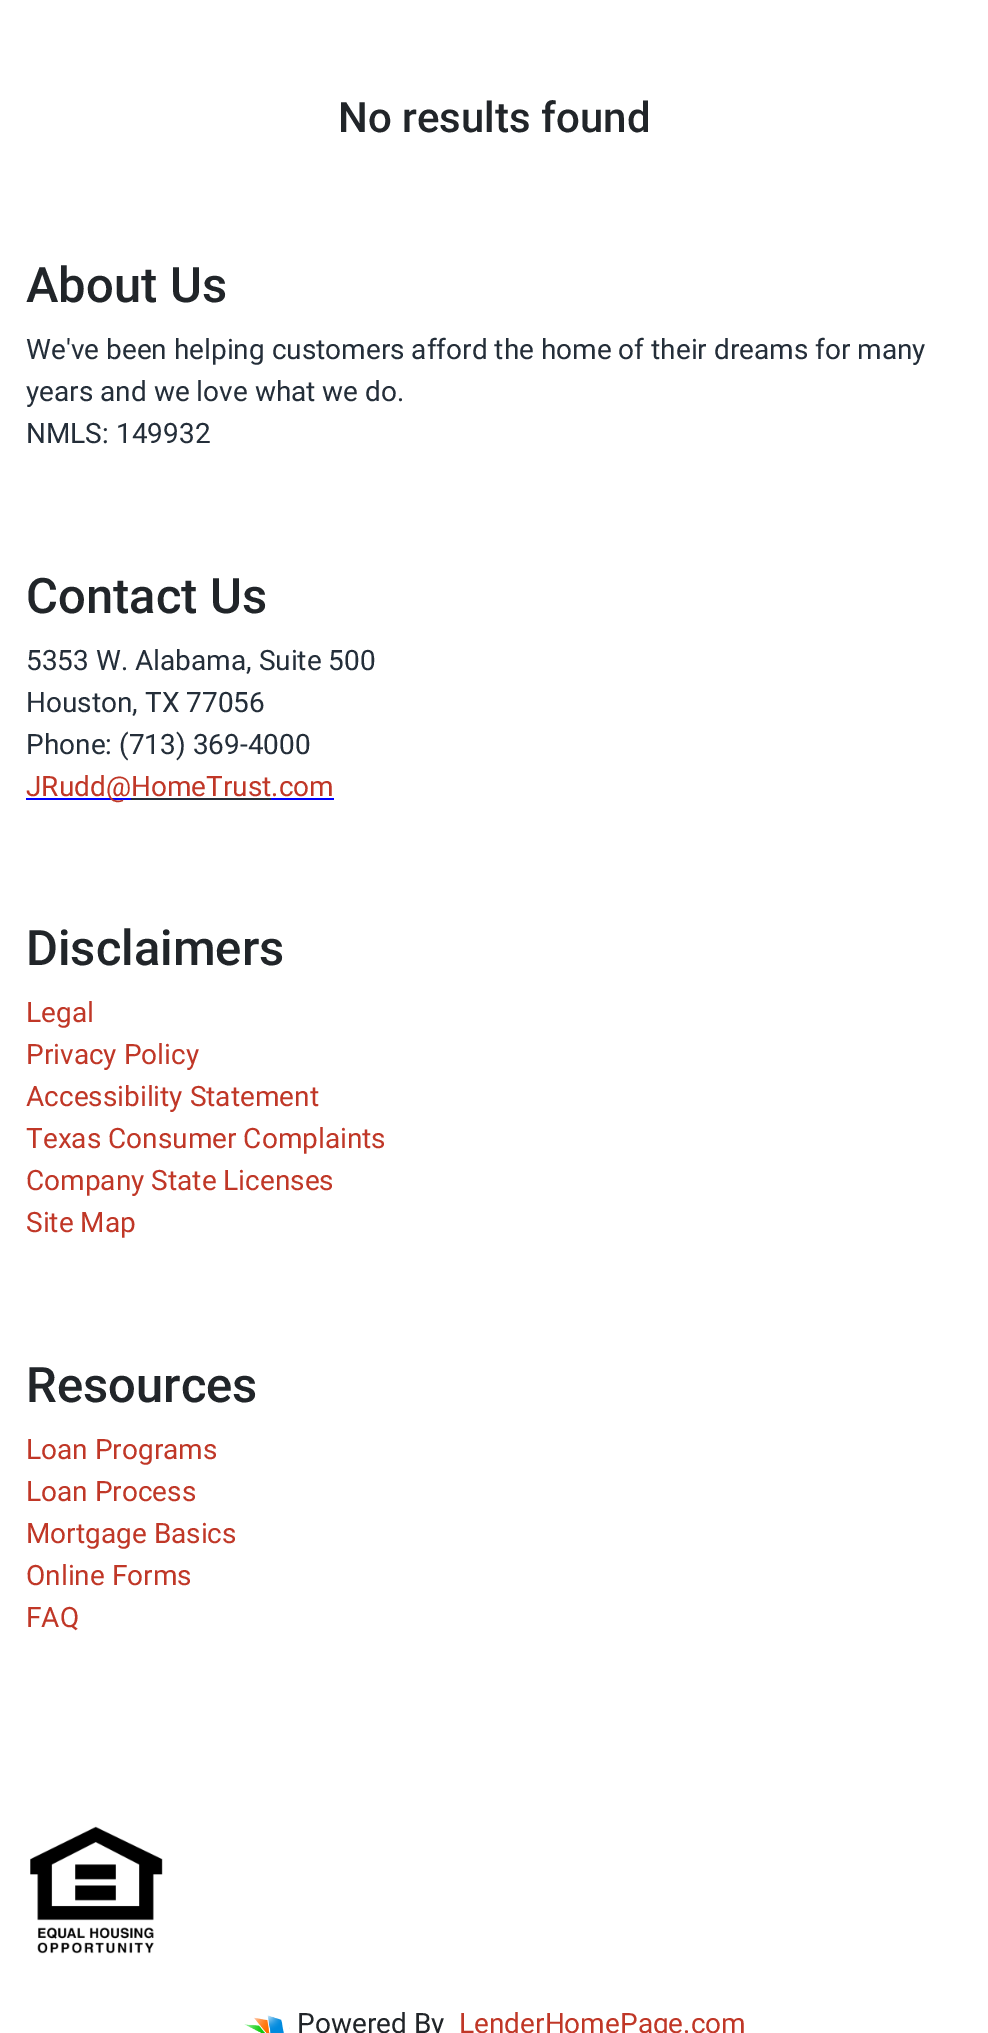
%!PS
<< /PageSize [988 2033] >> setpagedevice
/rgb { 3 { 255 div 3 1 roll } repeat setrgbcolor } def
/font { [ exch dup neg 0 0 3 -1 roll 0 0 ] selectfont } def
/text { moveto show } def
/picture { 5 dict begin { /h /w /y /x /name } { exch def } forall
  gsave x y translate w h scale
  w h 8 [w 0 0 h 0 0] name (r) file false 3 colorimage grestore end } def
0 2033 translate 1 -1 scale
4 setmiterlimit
255 255 255 rgb
0 0 988 2033 rectfill
0 0 255 rgb
26 798 105 2 rectfill
(img_01.rgb) 30 1826 133 128 picture
(img_02.rgb) 244 2015 46 18 picture
/Roboto-Medium 42 font
33 37 41 rgb
(No results found) 338 132 text
/Roboto-Medium 49 font
(About Us) 26 302 text
/Roboto-Regular 28 font
36 46 57 rgb
(We've been helping customers afford the home of their dreams for many) 26 359 text
(years and we love what we do.) 26 401 text
(NMLS: 149932) 26 443 text
/Roboto-Medium 49 font
33 37 41 rgb
(Contact Us) 26 613 text
/Roboto-Regular 28 font
36 46 57 rgb
(5353 W. Alabama, Suite 500) 26 670 text
(Houston, TX 77056) 26 712 text
(Phone: \(713\) 369-4000) 26 754 text
192 55 39 rgb
(JRudd@HomeTrust.com) 26 796 text
36 46 57 rgb
131 798 140 2 rectfill
0 0 255 rgb
271 798 63 2 rectfill
/Roboto-Medium 49 font
33 37 41 rgb
(Disclaimers) 26 965 text
/Roboto-Regular 28 font
192 55 39 rgb
(Legal) 26 1022 text
(Privacy Policy) 26 1064 text
(Accessibility Statement) 26 1106 text
(Texas Consumer Complaints) 26 1148 text
(Company State Licenses) 26 1190 text
(Site Map) 26 1232 text
/Roboto-Medium 49 font
33 37 41 rgb
(Resources) 26 1402 text
/Roboto-Regular 28 font
192 55 39 rgb
(Loan Programs) 26 1459 text
(Loan Process) 26 1501 text
(Mortgage Basics) 26 1543 text
(Online Forms) 26 1585 text
(FAQ) 26 1627 text
33 37 41 rgb
(Powered By) 297 2033 text
192 55 39 rgb
(LenderHomePage.com) 459 2033 text
showpage
